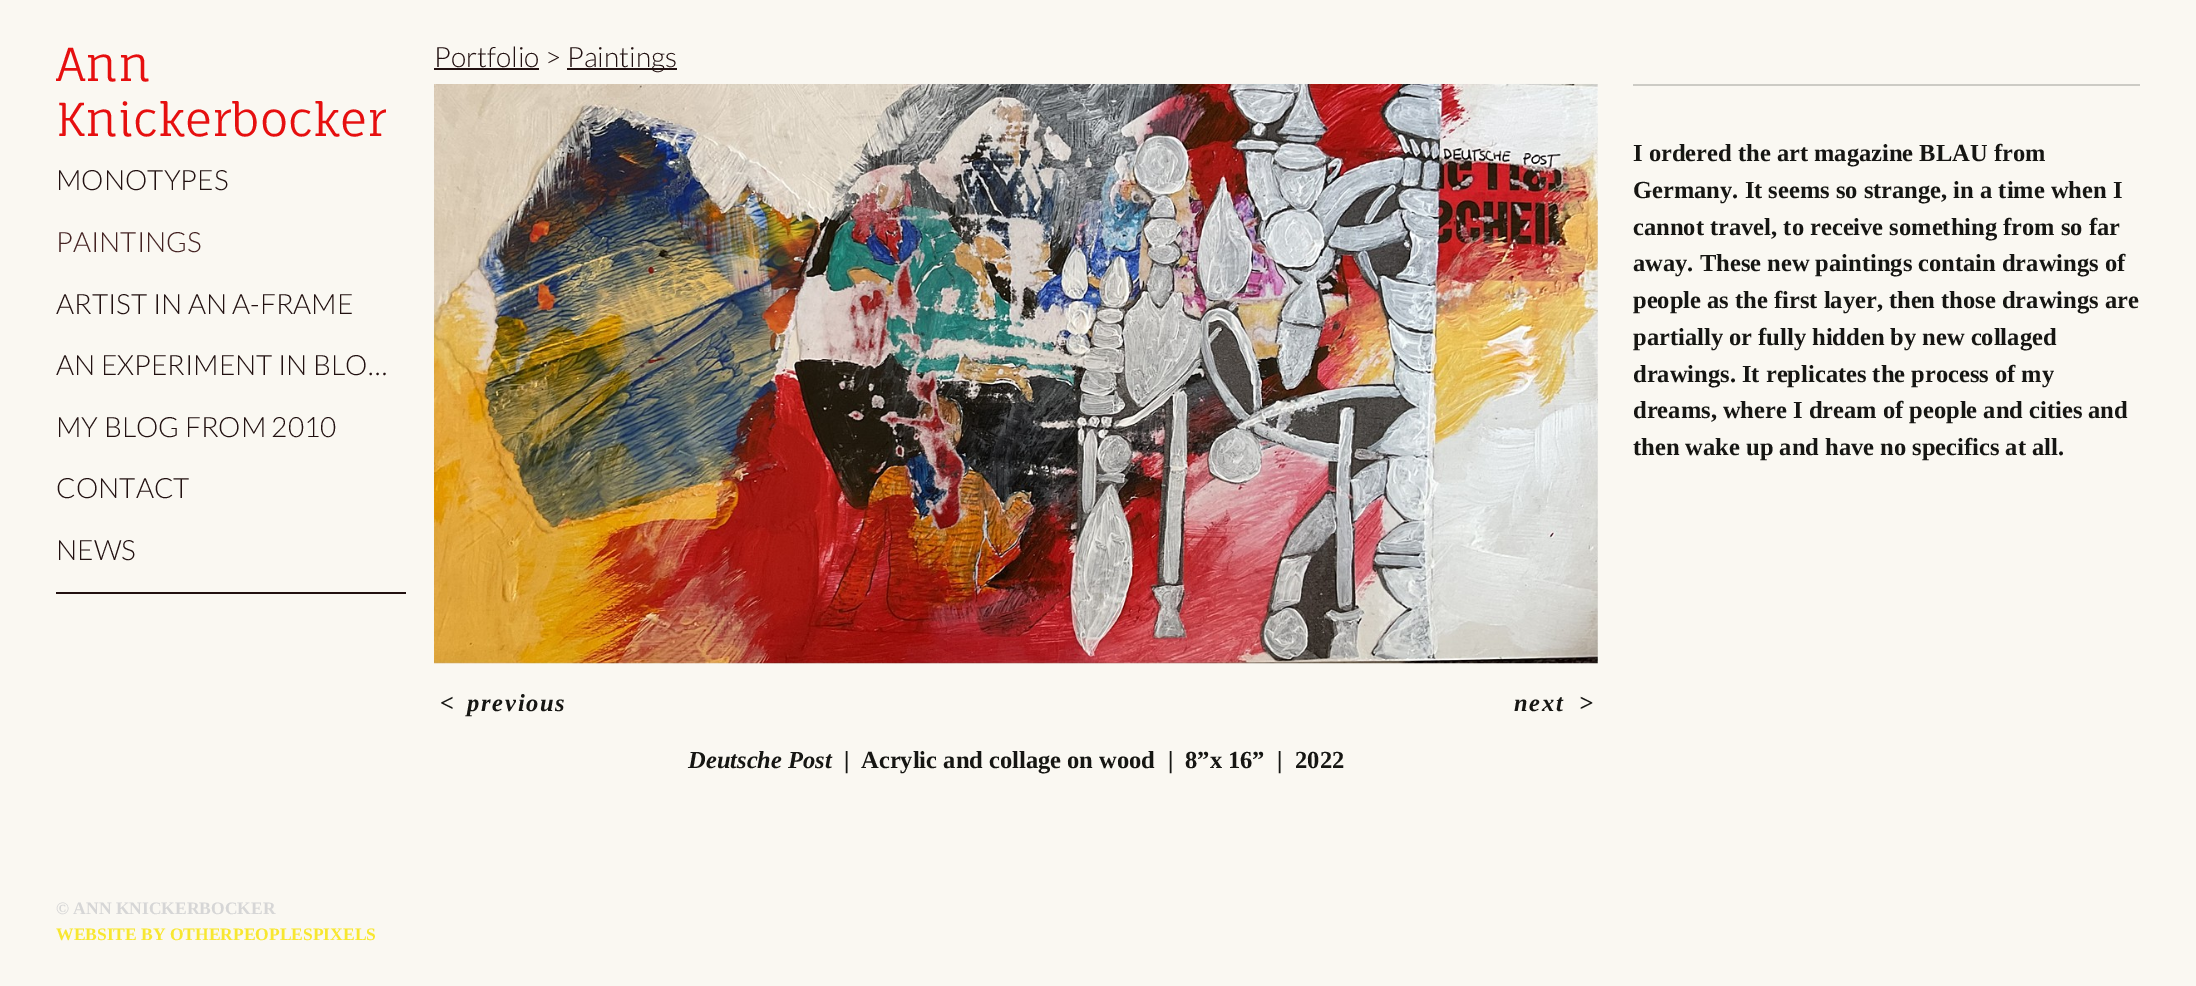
%!PS
<< /PageSize [2196 986] >> setpagedevice
/rgb { 3 { 255 div 3 1 roll } repeat setrgbcolor } def
/font { [ exch dup neg 0 0 3 -1 roll 0 0 ] selectfont } def
/text { moveto show } def
/picture { 5 dict begin { /h /w /y /x /name } { exch def } forall
  gsave x y translate w h scale
  w h 8 [w 0 0 h 0 0] name (r) file false 3 colorimage grestore end } def
0 986 translate 1 -1 scale
4 setmiterlimit
250 248 242 rgb
0 0 2196 986 rectfill
34 17 17 rgb
56 592 350 2 rectfill
434 68 105 2 rectfill
567 68 110 2 rectfill
204 203 197 rgb
1633 84 507 2 rectfill
(img_01.rgb) 434 84 1164 580 picture
/FaunaOne-Regular 45.5 font
230 15 15 rgb
(Ann) 56 81 text
(Knickerbocker) 56 136 text
/Lato-Light 28 font
34 17 17 rgb
(MONOTYPES) 56 190 text
68 34 34 rgb
(PAINTINGS) 56 252 text
34 17 17 rgb
(ARTIST IN AN A-FRAME) 56 314 text
(AN EXPERIMENT IN BLO…) 56 375 text
(MY BLOG FROM 2010) 56 437 text
(CONTACT) 56 498 text
(NEWS) 56 560 text
/LiberationSerif-Bold 17.5 font
214 214 214 rgb
(© ANN KNICKERBOCKER) 56 914 text
248 231 48 rgb
(WEBSITE BY OTHERPEOPLESPIXELS) 56 940 text
/Lato-Light 28 font
34 17 17 rgb
(Portfolio >) 434 67 text
(Paintings) 567 67 text
/LiberationSerif-Bold 24.5 font
22 22 19 rgb
(I ordered the art magazine BLAU from) 1633 161 text
(Germany. It seems so strange, in a time when I) 1633 198 text
(cannot travel, to receive something from so far) 1633 235 text
(away. These new paintings contain drawings of) 1633 271 text
(people as the first layer, then those drawings are) 1633 308 text
(partially or fully hidden by new collaged) 1633 345 text
(drawings. It replicates the process of my) 1633 382 text
(dreams, where I dream of people and cities and) 1633 418 text
(then wake up and have no specifics at all.) 1633 455 text
/LiberationSerif-BoldItalic 24.5 font
440 711 moveto 1.75 0 (<) ashow
467 711 moveto 1.75 0 (previous) ashow
1514 711 moveto 1.75 0 (next) ashow
1579 711 moveto 1.75 0 (>) ashow
(Deutsche Post) 688 768 text
/LiberationSerif-Bold 24.5 font
(|) 844 768 text
(Acrylic and collage on wood) 861 768 text
(|) 1168 768 text
(8”x 16”) 1185 768 text
(|) 1277 768 text
(2022) 1295 768 text
showpage
